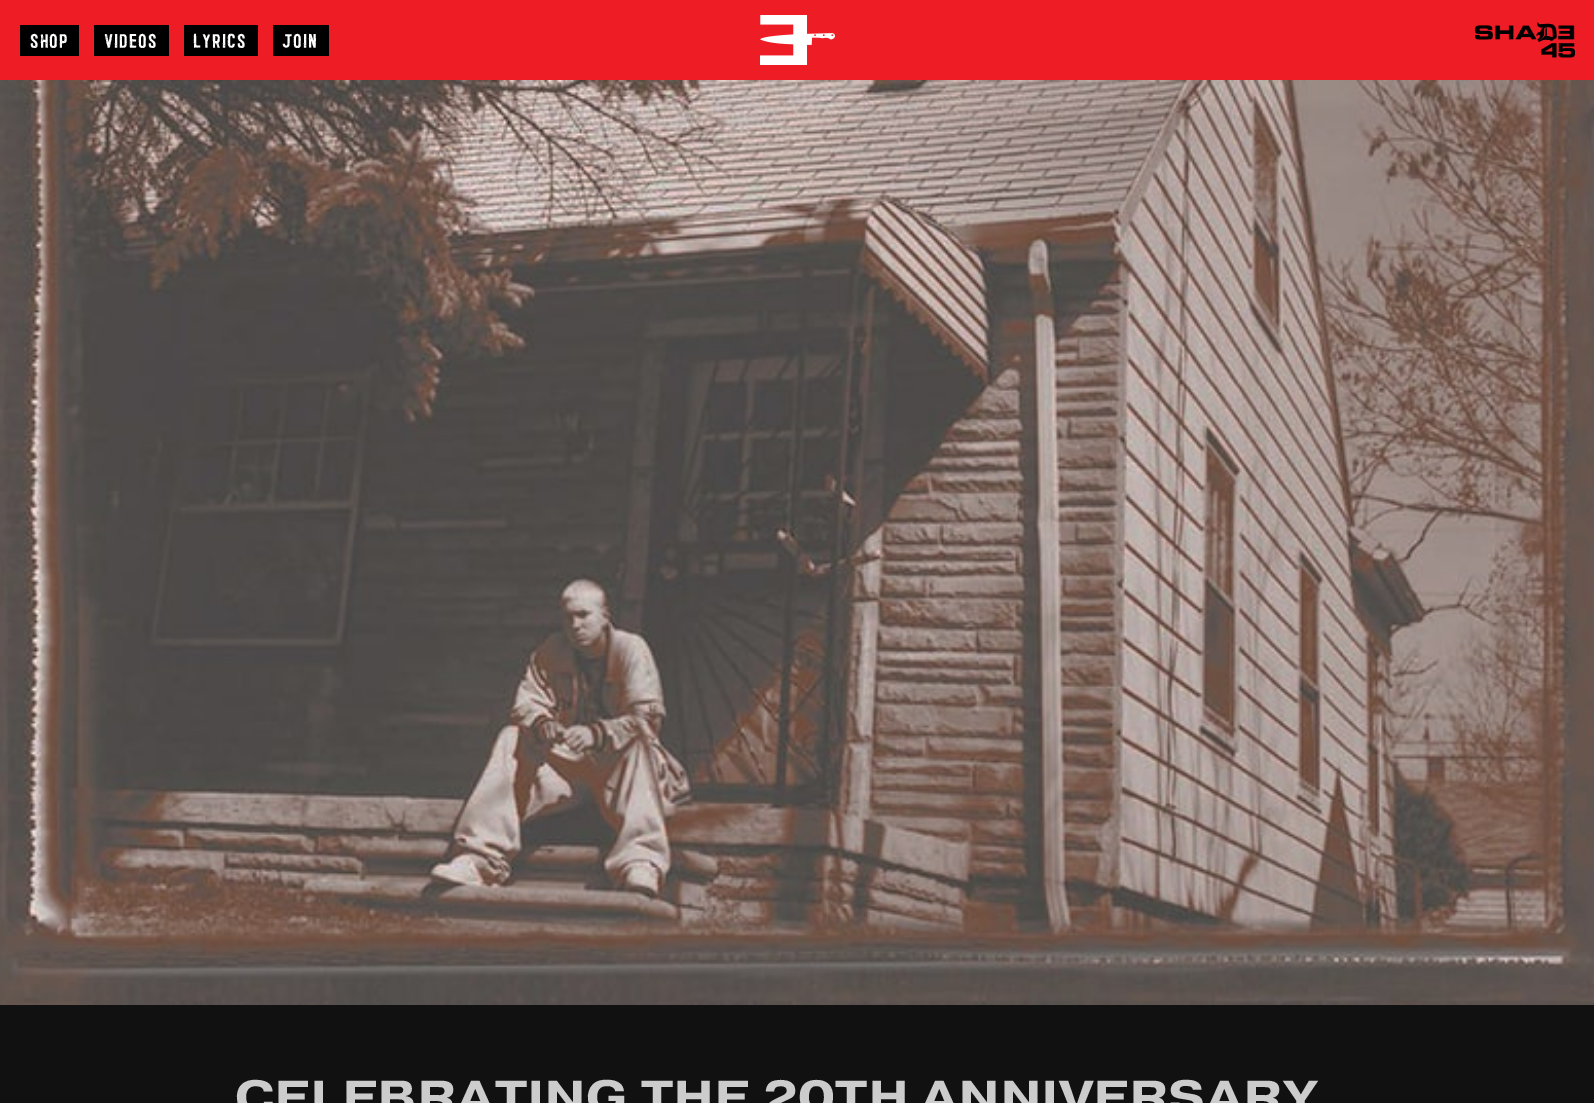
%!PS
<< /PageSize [1594 1103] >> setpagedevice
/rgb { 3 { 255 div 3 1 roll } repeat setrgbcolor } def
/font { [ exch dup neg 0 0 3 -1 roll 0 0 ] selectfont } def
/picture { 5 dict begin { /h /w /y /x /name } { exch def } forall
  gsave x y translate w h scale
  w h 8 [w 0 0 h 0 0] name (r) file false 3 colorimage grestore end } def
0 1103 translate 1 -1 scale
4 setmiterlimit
17 17 17 rgb
0 0 1594 1103 rectfill
238 28 37 rgb
0 0 1594 80 rectfill
0 0 0 rgb
20 25 59 31 rectfill
94 25 75 31 rectfill
184 25 74 31 rectfill
273 25 56 31 rectfill
(img_01.rgb) 760 15 75 50 picture
(img_02.rgb) 1475 22 100 36 picture
(img_03.rgb) 0 80 1594 925 picture
/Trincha-Regular 16 font
255 255 255 rgb
30 48 moveto 1.25 0 (SHOP) ashow
104 48 moveto 1.25 0 (VIDEOS) ashow
193 48 moveto 1.25 0 (LYRICS) ashow
282 48 moveto 1.25 0 (JOIN) ashow
/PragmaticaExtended-Bold 46.25 font
204 204 204 rgb
235 1113 moveto 1.2 0 (CELEBRATING THE 20TH ANNIVERSARY) ashow
showpage
